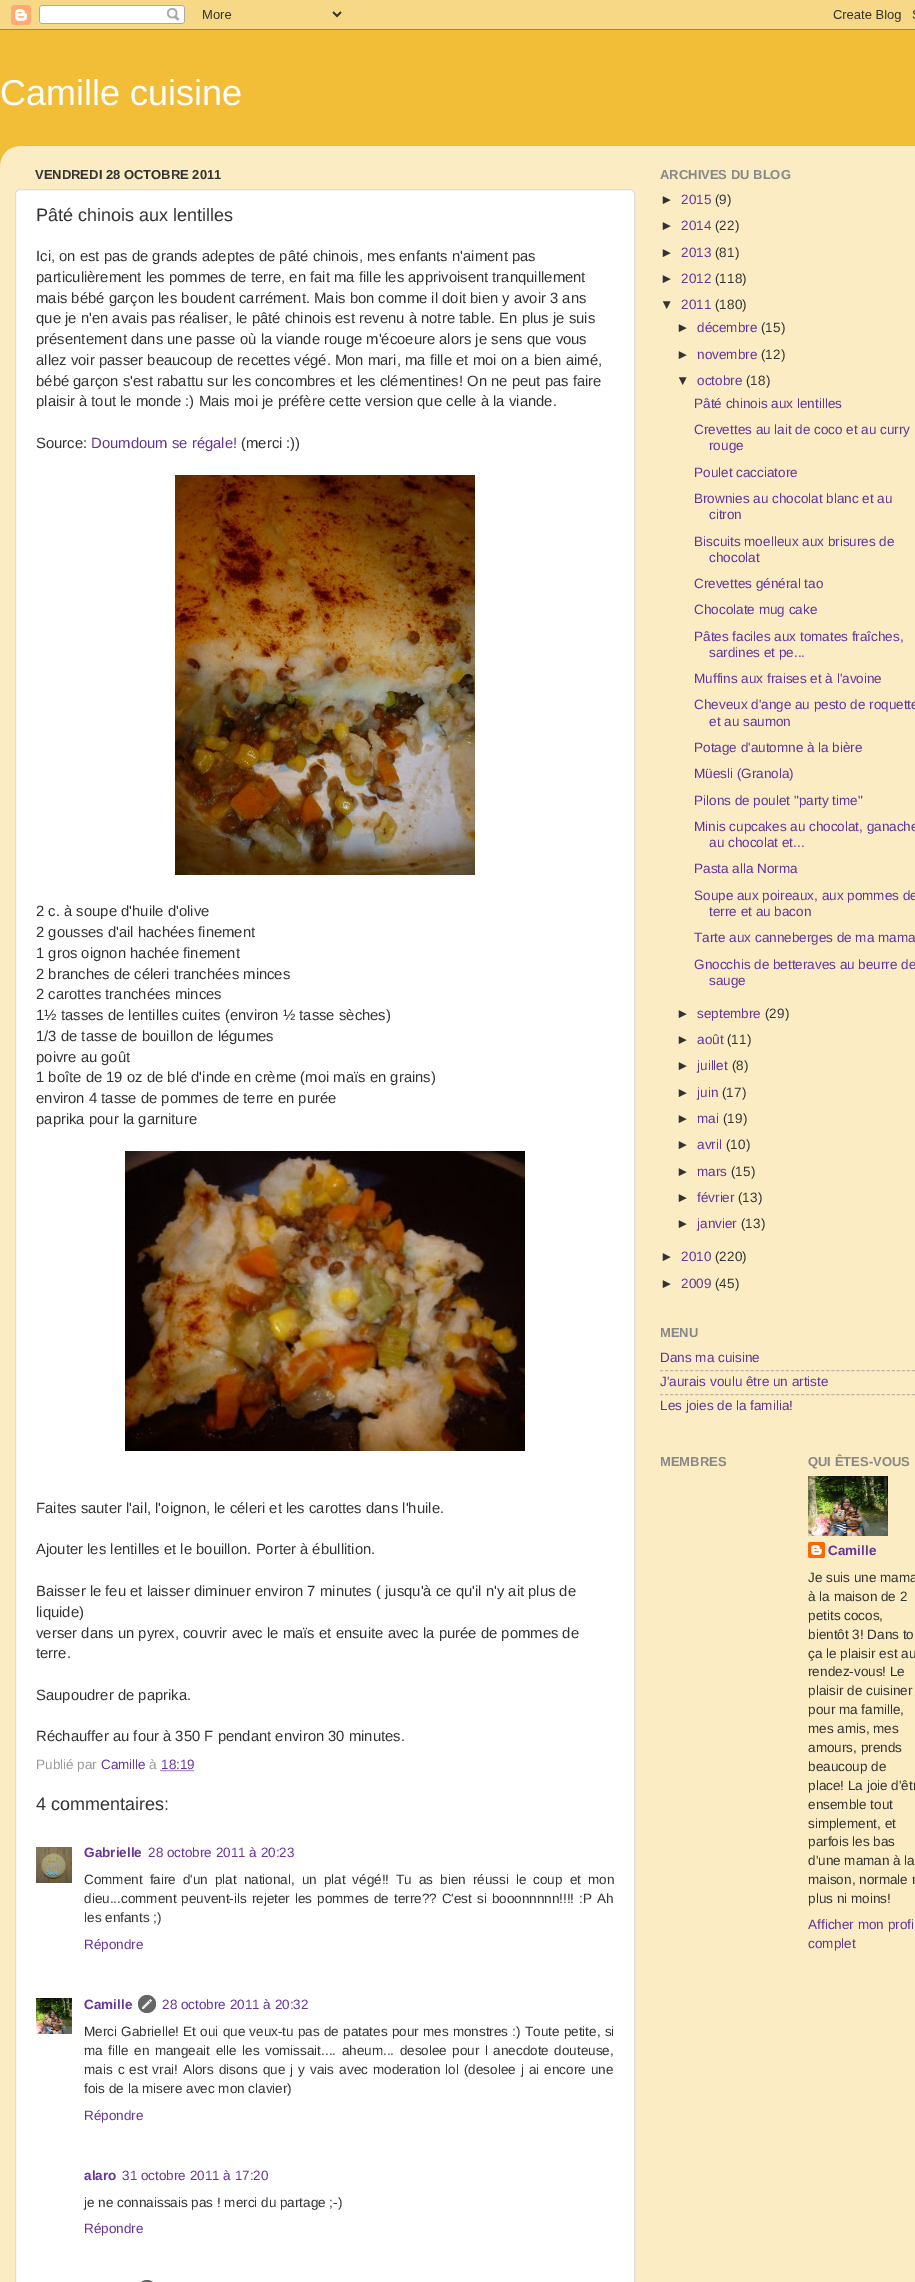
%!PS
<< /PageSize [915 2282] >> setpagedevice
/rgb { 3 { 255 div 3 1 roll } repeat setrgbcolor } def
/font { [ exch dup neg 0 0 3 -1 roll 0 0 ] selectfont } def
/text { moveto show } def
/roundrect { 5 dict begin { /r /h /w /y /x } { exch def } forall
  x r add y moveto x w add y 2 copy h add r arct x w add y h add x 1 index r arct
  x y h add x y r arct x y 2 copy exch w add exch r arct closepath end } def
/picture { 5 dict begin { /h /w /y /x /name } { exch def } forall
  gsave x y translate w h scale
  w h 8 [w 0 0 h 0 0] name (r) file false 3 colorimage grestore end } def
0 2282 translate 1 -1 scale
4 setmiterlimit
242 190 55 rgb
0 0 915 2282 rectfill
(img_01.rgb) 0 0 915 30 picture
(img_02.rgb) 0 146 915 2136 picture
255 255 255 rgb
15.5 189.5 619 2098 4.5 roundrect gsave fill grestore
221 221 221 rgb
stroke
(img_03.rgb) 175 475 300 400 picture
(img_04.rgb) 125 1151 400 300 picture
102 51 153 rgb
[1 1] 0 setdash
160.5 1770.5 moveto 34 0 rlineto stroke
(img_05.rgb) 36 1847 36 36 picture
(img_06.rgb) 36 1998 36 36 picture
(img_07.rgb) 138 1995 18 18 picture
(img_08.rgb) 141 2280 12 2 picture
190 182 162 rgb
[3 2.04] 0 setdash
660 1370.5 moveto 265 0 rlineto stroke
660 1394.5 moveto 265 0 rlineto stroke
(img_09.rgb) 808 1476 80 60 picture
(img_10.rgb) 808 1542 17 16 picture
/LiberationSans-Regular 36 font
255 255 255 rgb
(Camille cuisine) 0 105 text
/LiberationSans-Bold 13 font
51 51 51 rgb
(VENDREDI 28 OCTOBRE 2011) 35 179 text
/LiberationSans-Regular 18 font
(Pâté chinois aux lentilles) 36 221 text
/LiberationSans-Regular 14.85 font
(Ici, on est pas de grands adeptes de pâté chinois, mes enfants n'aiment pas) 36 261 text
(particulièrement les pommes de terre, en fait ma fille les apprivoisent tranquillement) 36 282 text
(mais bébé garçon les boudent carrément. Mais bon comme il doit bien y avoir 3 ans) 36 303 text
(que je n'en avais pas réaliser, le pâté chinois est revenu à notre table. En plus je suis) 36 323 text
(présentement dans une passe où la viande rouge m'écoeure alors je sens que vous) 36 344 text
(allez voir passer beaucoup de recettes végé. Mon mari, ma fille et moi on a bien aimé,) 36 365 text
(bébé garçon s'est rabattu sur les concombres et les clémentines! On ne peut pas faire) 36 386 text
(plaisir à tout le monde :\) Mais moi je préfère cette version que celle à la viande.) 36 406 text
(Source:) 36 448 text
102 51 153 rgb
(Doumdoum se régale!) 91 448 text
51 51 51 rgb
(\(merci :\)\)) 241 448 text
(2 c. à soupe d'huile d'olive) 36 916 text
(2 gousses d'ail hachées finement) 36 937 text
(1 gros oignon hachée finement) 36 958 text
(2 branches de céleri tranchées minces) 36 979 text
(2 carottes tranchées minces) 36 999 text
(1½ tasses de lentilles cuites \(environ ½ tasse sèches\)) 36 1020 text
(1/3 de tasse de bouillon de légumes) 36 1041 text
(poivre au goût) 36 1062 text
(1 boîte de 19 oz de blé d'inde en crème \(moi maïs en grains\)) 36 1082 text
(environ 4 tasse de pommes de terre en purée) 36 1103 text
(paprika pour la garniture) 36 1124 text
(Faites sauter l'ail, l'oignon, le céleri et les carottes dans l'huile.) 36 1513 text
(Ajouter les lentilles et le bouillon. Porter à ébullition.) 36 1554 text
(Baisser le feu et laisser diminuer environ 7 minutes \( jusqu'à ce qu'il n'y ait plus de) 36 1596 text
(liquide\)) 36 1617 text
(verser dans un pyrex, couvrir avec le maïs et ensuite avec la purée de pommes de) 36 1638 text
(terre.) 36 1658 text
(Saupoudrer de paprika.) 36 1700 text
(Réchauffer au four à 350 F pendant environ 30 minutes.) 36 1741 text
/LiberationSans-Regular 13.5 font
153 153 153 rgb
(Publié par) 36 1769 text
102 51 153 rgb
(Camille) 101 1769 text
153 153 153 rgb
(à) 149 1769 text
102 51 153 rgb
(18:19) 161 1769 text
/LiberationSans-Regular 18 font
51 51 51 rgb
(4 commentaires:) 36 1810 text
/LiberationSans-Bold 13.5 font
102 51 153 rgb
(Gabrielle) 84 1857 text
/LiberationSans-Regular 13.5 font
(28 octobre 2011 à 20:23) 148 1857 text
51 51 51 rgb
84 1884 moveto 3.25 0 32 (Comment faire d'un plat national, un plat végé!! Tu as bien réussi le coup et mon) widthshow
84 1903 moveto 1.25 0 32 (dieu...comment peuvent-ils rejeter les pommes de terre?? C'est si booonnnnn!!!! :P Ah) widthshow
(les enfants ;\)) 84 1922 text
102 51 153 rgb
(Répondre) 84 1949 text
/LiberationSans-Bold 13.5 font
(Camille) 84 2009 text
/LiberationSans-Regular 13.5 font
(28 octobre 2011 à 20:32) 162 2009 text
51 51 51 rgb
84 2036 moveto 0.5 0 32 (Merci Gabrielle! Et oui que veux-tu pas de patates pour mes monstres :\) Toute petite, si) widthshow
84 2055 moveto 1.75 0 32 (ma fille en mangeait elle les vomissait.... aheum... desolee pour l anecdote douteuse,) widthshow
84 2074 moveto 1.3 0 32 (mais c est vrai! Alors disons que j y vais avec moderation lol \(desolee j ai encore une) widthshow
(fois de la misere avec mon clavier\)) 84 2093 text
102 51 153 rgb
(Répondre) 84 2120 text
/LiberationSans-Bold 13.5 font
(alaro) 84 2180 text
/LiberationSans-Regular 13.5 font
(31 octobre 2011 à 17:20) 122 2180 text
51 51 51 rgb
(je ne connaissais pas ! merci du partage ;-\)) 84 2207 text
102 51 153 rgb
(Répondre) 84 2233 text
/LiberationSans-Bold 13 font
136 136 136 rgb
(ARCHIVES DU BLOG) 660 179 text
/LiberationSans-Regular 13.5 font
51 51 51 rgb
(►) 660 204 text
102 51 153 rgb
(2015) 681 204 text
51 51 51 rgb
(\(9\)) 715 204 text
(►) 660 230 text
102 51 153 rgb
(2014) 681 230 text
51 51 51 rgb
(\(22\)) 715 230 text
(►) 660 257 text
102 51 153 rgb
(2013) 681 257 text
51 51 51 rgb
(\(81\)) 715 257 text
(►) 660 283 text
102 51 153 rgb
(2012) 681 283 text
51 51 51 rgb
(\(118\)) 715 283 text
(▼) 660 309 text
102 51 153 rgb
(2011) 681 309 text
51 51 51 rgb
(\(180\)) 715 309 text
(►) 676 332 text
102 51 153 rgb
(décembre) 697 332 text
51 51 51 rgb
(\(15\)) 761 332 text
(►) 676 359 text
102 51 153 rgb
(novembre) 697 359 text
51 51 51 rgb
(\(12\)) 761 359 text
(▼) 676 385 text
102 51 153 rgb
(octobre) 697 385 text
51 51 51 rgb
(\(18\)) 746 385 text
102 51 153 rgb
(Pâté chinois aux lentilles) 694 408 text
(Crevettes au lait de coco et au curry) 694 434 text
(rouge) 709 450 text
(Poulet cacciatore) 694 477 text
(Brownies au chocolat blanc et au) 694 503 text
(citron) 709 519 text
(Biscuits moelleux aux brisures de) 694 546 text
(chocolat) 709 562 text
(Crevettes général tao) 694 588 text
(Chocolate mug cake) 694 614 text
(Pâtes faciles aux tomates fraîches,) 694 641 text
(sardines et pe...) 709 657 text
(Muffins aux fraises et à l'avoine) 694 683 text
(Cheveux d'ange au pesto de roquette) 694 709 text
(et au saumon) 709 726 text
(Potage d'automne à la bière) 694 752 text
(Müesli \(Granola\)) 694 778 text
(Pilons de poulet "party time") 694 805 text
(Minis cupcakes au chocolat, ganache) 694 831 text
(au chocolat et...) 709 847 text
(Pasta alla Norma) 694 873 text
(Soupe aux poireaux, aux pommes de) 694 900 text
(terre et au bacon) 709 916 text
(Tarte aux canneberges de ma mama) 694 942 text
(Gnocchis de betteraves au beurre de) 694 969 text
(sauge) 709 985 text
51 51 51 rgb
(►) 676 1018 text
102 51 153 rgb
(septembre) 697 1018 text
51 51 51 rgb
(\(29\)) 765 1018 text
(►) 676 1044 text
102 51 153 rgb
(août) 697 1044 text
51 51 51 rgb
(\(11\)) 727 1044 text
(►) 676 1070 text
102 51 153 rgb
(juillet) 697 1070 text
51 51 51 rgb
(\(8\)) 732 1070 text
(►) 676 1097 text
102 51 153 rgb
(juin) 697 1097 text
51 51 51 rgb
(\(17\)) 722 1097 text
(►) 676 1123 text
102 51 153 rgb
(mai) 697 1123 text
51 51 51 rgb
(\(19\)) 723 1123 text
(►) 676 1149 text
102 51 153 rgb
(avril) 697 1149 text
51 51 51 rgb
(\(10\)) 726 1149 text
(►) 676 1176 text
102 51 153 rgb
(mars) 697 1176 text
51 51 51 rgb
(\(15\)) 731 1176 text
(►) 676 1202 text
102 51 153 rgb
(février) 697 1202 text
51 51 51 rgb
(\(13\)) 738 1202 text
(►) 676 1228 text
102 51 153 rgb
(janvier) 697 1228 text
51 51 51 rgb
(\(13\)) 741 1228 text
(►) 660 1261 text
102 51 153 rgb
(2010) 681 1261 text
51 51 51 rgb
(\(220\)) 715 1261 text
(►) 660 1288 text
102 51 153 rgb
(2009) 681 1288 text
51 51 51 rgb
(\(45\)) 715 1288 text
/LiberationSans-Bold 13 font
136 136 136 rgb
(MENU) 660 1337 text
/LiberationSans-Regular 13.5 font
102 51 153 rgb
(Dans ma cuisine) 660 1362 text
(J'aurais voulu être un artiste) 660 1386 text
(Les joies de la familia!) 660 1410 text
/LiberationSans-Bold 13 font
136 136 136 rgb
(MEMBRES) 660 1466 text
(QUI ÊTES-VOUS) 808 1466 text
/LiberationSans-Bold 13.5 font
102 51 153 rgb
(Camille) 828 1555 text
/LiberationSans-Regular 13.5 font
51 51 51 rgb
(Je suis une mama) 808 1582 text
(à la maison de 2) 808 1601 text
(petits cocos,) 808 1620 text
(bientôt 3! Dans to) 808 1639 text
(ça le plaisir est au) 808 1658 text
(rendez-vous! Le) 808 1676 text
(plaisir de cuisiner) 808 1695 text
(pour ma famille,) 808 1714 text
(mes amis, mes) 808 1733 text
(amours, prends) 808 1752 text
(beaucoup de) 808 1771 text
(place! La joie d'êtr) 808 1790 text
(ensemble tout) 808 1809 text
(simplement, et) 808 1828 text
(parfois les bas) 808 1846 text
(d'une maman à la) 808 1865 text
(maison, normale n) 808 1884 text
(plus ni moins!) 808 1903 text
102 51 153 rgb
(Afficher mon profil) 808 1929 text
(complet) 808 1948 text
showpage
